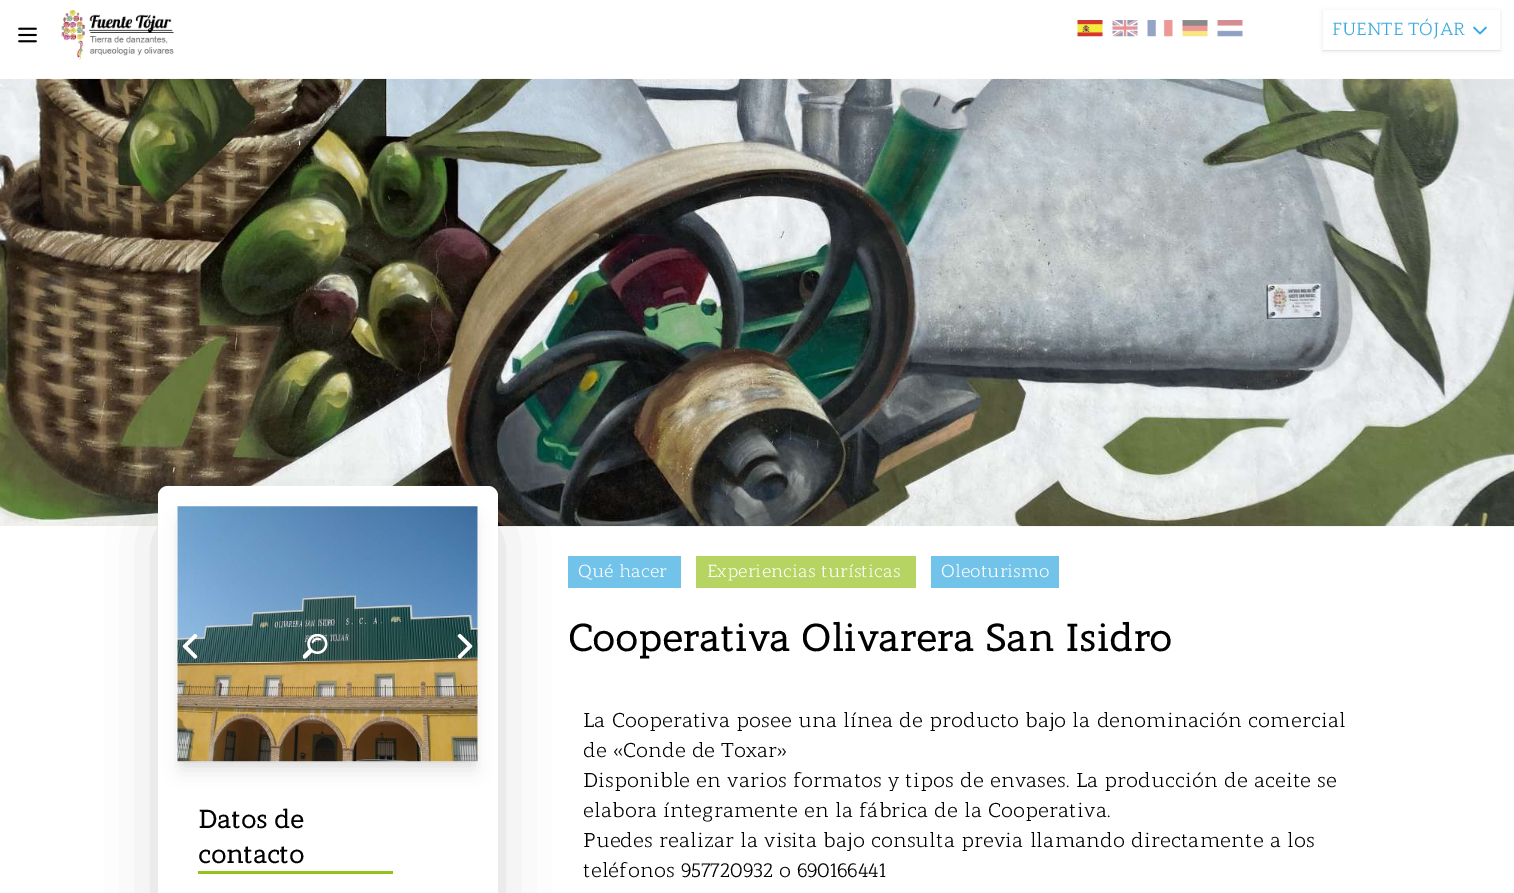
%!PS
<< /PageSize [1514 893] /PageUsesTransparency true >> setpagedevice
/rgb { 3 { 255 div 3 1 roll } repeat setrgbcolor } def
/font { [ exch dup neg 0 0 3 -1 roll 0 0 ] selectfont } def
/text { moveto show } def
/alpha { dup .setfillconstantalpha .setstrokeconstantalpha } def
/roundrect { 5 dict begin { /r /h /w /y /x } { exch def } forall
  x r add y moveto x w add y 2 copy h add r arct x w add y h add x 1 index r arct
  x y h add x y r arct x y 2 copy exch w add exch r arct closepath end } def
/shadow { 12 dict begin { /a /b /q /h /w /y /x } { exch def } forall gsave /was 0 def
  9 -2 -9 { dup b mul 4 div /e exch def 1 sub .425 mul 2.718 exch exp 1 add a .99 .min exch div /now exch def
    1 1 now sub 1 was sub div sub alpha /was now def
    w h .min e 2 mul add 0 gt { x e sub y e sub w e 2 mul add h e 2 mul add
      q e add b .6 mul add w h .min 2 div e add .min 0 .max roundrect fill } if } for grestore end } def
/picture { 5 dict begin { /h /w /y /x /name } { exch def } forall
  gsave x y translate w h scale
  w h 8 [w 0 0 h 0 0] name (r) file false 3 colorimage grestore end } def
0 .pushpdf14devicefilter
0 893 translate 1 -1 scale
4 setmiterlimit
255 255 255 rgb
0 0 1514 893 rectfill
(img_01.rgb) 18 27 19 16 picture
(img_02.rgb) 61 10 113 50 picture
(img_03.rgb) 1077 20 26 17 picture
(img_04.rgb) 1112 20 26 17 picture
(img_05.rgb) 1147 20 26 17 picture
(img_06.rgb) 1182 20 26 17 picture
(img_07.rgb) 1217 20 26 17 picture
gsave
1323 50 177 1 rectclip
0 0 0 rgb
1323 11 177 40 0 1 0.06 shadow
grestore
gsave
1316 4 moveto 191 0 rlineto 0 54 rlineto -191 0 rlineto closepath 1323 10 moveto 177 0 rlineto 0 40 rlineto -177 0 rlineto closepath eoclip newpath
0 0 0 rgb
1323 11 177 40 0 2 0.1 shadow
grestore
54 169 224 rgb
1.7 setlinewidth
1 setlinecap
1 setlinejoin
1486 27.5 moveto -6 6 rlineto -6 -6 rlineto stroke
(img_08.rgb) 0 78 1514 449 picture
114 195 233 rgb
568 556 113 32 rectfill
0 0 0 rgb
173 533 310 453 0 31 0.25 shadow
255 255 255 rgb
158 486 340 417 10 roundrect fill
0 0 0 rgb
180 514 295 250 0 4 0.05 shadow
181 523 293 247 0 9.5 0.1 shadow
(img_09.rgb) 177 506 301 256 picture
(img_10.rgb) 182 634 16 25 picture
(img_11.rgb) 303 634 25 25 picture
(img_12.rgb) 457 634 16 25 picture
149 193 30 rgb
198 871 195 3 rectfill
181 212 98 rgb
696 556 220 32 rectfill
114 195 233 rgb
931 556 128 32 rectfill
/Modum-Regular 17.5 font
54 169 224 rgb
(FUENTE TÓJAR) 1332 35 text
/Modum-Bold 25 font
0 0 0 rgb
(Datos de) 198 828 text
(contacto) 198 863 text
/Modum-Regular 17.5 font
255 255 255 rgb
(Qué hacer) 578 577 text
(Experiencias turísticas) 707 577 text
(Oleoturismo) 941 577 text
/Modum-Bold 37.5 font
0 0 0 rgb
(Cooperativa Olivarera San Isidro) 568 651 text
/Modum-Regular 20 font
(La Cooperativa posee una línea de producto bajo la denominación comercial) 583 727 text
(de «Conde de Toxar») 583 757 text
(Disponible en varios formatos y tipos de envases. La producción de aceite se) 583 787 text
(elabora íntegramente en la fábrica de la Cooperativa.) 583 817 text
(Puedes realizar la visita bajo consulta previa llamando directamente a los) 583 847 text
(teléfonos 957720932 o 690166441) 583 877 text
.poppdf14devicefilter showpage
